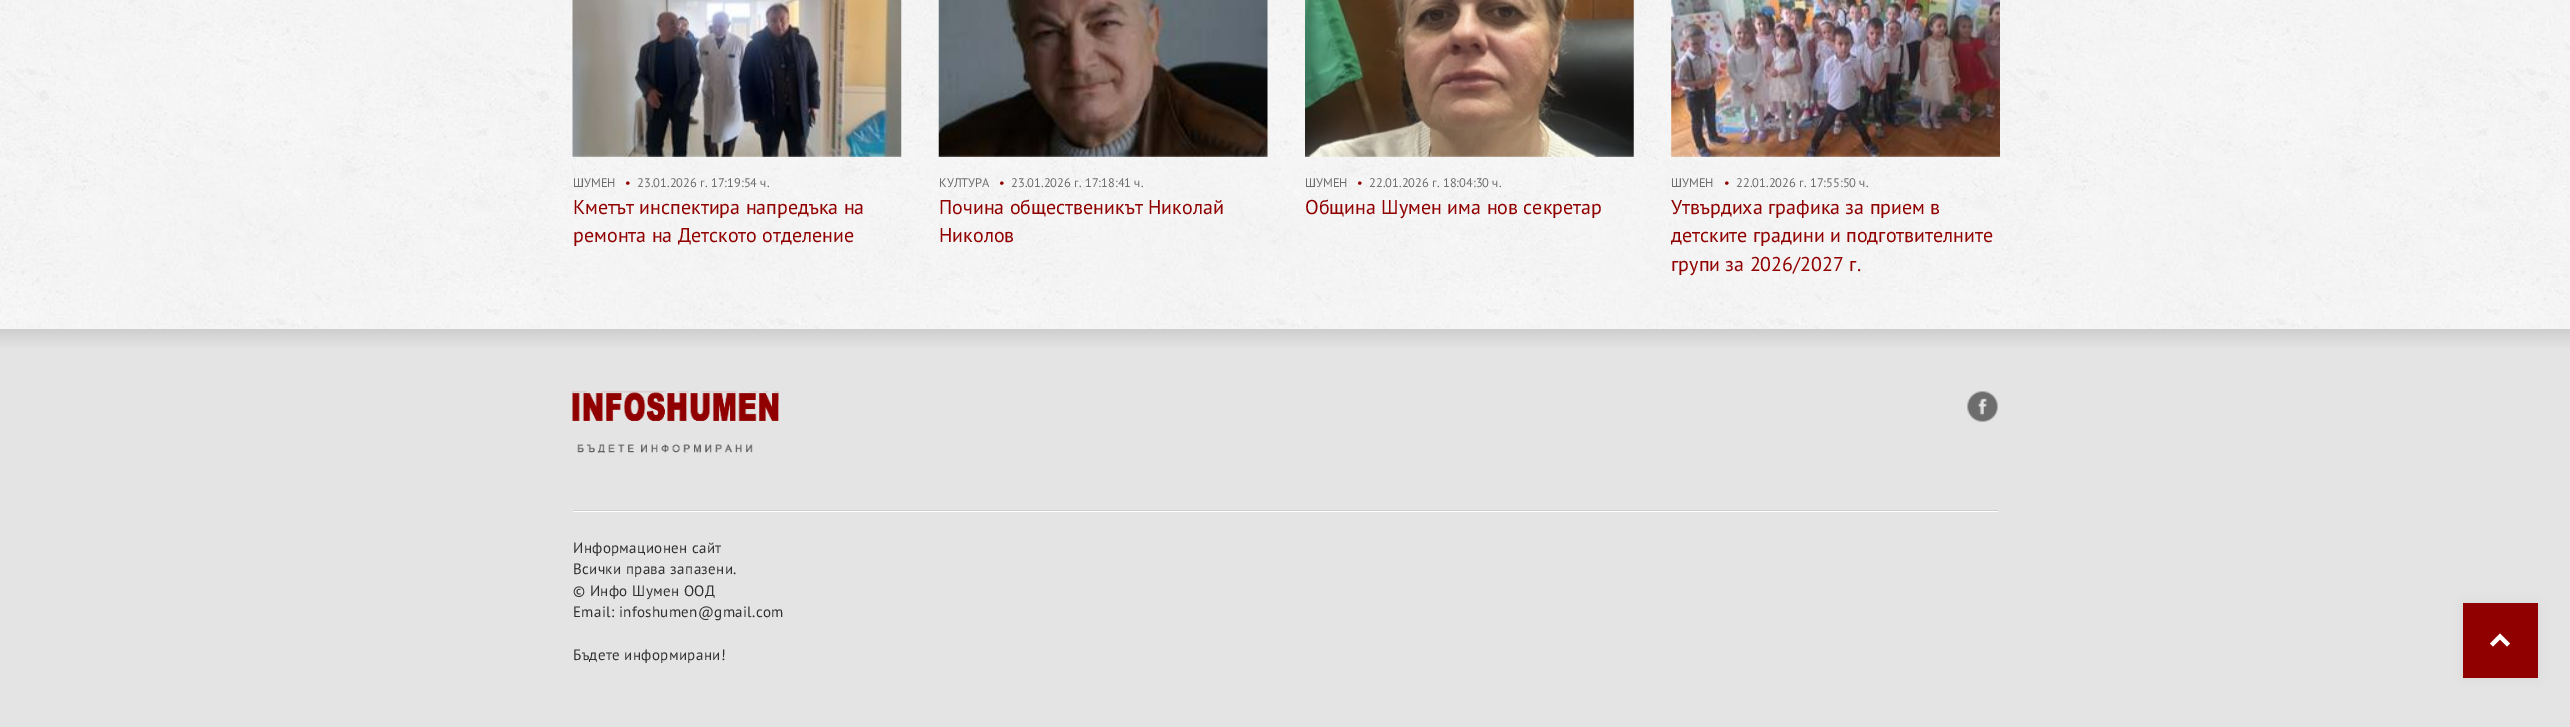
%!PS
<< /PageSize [2570 727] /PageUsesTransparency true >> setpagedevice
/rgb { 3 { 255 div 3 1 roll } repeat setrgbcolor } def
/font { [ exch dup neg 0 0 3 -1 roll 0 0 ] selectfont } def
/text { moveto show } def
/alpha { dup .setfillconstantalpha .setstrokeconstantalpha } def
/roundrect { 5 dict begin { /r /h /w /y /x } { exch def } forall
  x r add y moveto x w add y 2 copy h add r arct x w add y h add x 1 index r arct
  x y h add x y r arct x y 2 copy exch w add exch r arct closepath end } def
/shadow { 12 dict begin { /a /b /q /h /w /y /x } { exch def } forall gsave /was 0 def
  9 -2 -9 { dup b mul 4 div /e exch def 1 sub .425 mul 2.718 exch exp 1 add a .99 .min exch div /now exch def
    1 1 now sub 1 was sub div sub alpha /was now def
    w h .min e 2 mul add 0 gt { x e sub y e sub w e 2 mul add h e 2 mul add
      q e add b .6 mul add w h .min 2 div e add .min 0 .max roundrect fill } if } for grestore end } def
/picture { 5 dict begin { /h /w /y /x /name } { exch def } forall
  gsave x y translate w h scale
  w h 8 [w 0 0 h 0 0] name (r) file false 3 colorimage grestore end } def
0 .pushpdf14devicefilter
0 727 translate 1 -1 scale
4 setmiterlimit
255 255 255 rgb
0 0 2570 727 rectfill
(img_01.rgb) 0 0 2570 329 picture
(img_02.rgb) 572 0 330 157 picture
(img_03.rgb) 938 0 330 157 picture
(img_04.rgb) 1305 0 329 157 picture
(img_05.rgb) 1671 0 329 157 picture
gsave 0 329 moveto 2570 0 rlineto 0 398 rlineto -2570 0 rlineto closepath clip newpath
<< /ShadingType 2 /ColorSpace /DeviceRGB /Coords [1285 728 1285 329] /Extend [true true] /Function << /FunctionType 3 /Domain [0 1] /Functions [<< /FunctionType 2 /Domain [0 1] /C0 [0.894 0.894 0.894] /C1 [0.894 0.894 0.894] /N 1 >> << /FunctionType 2 /Domain [0 1] /C0 [0.894 0.894 0.894] /C1 [0.808 0.808 0.808] /N 1 >>] /Bounds [0.95] /Encode [0 1 0 1] >> >> shfill grestore
(img_06.rgb) 572 391 207 62 picture
(img_07.rgb) 1967 391 31 31 picture
573 511 1425 1 rectfill
206 206 206 rgb
573 510 1425 1 rectfill
0 0 0 rgb
2463 603 75 75 0 6 0.05 shadow
145 0 0 rgb
2463 603 75 75 rectfill
255 255 255 rgb
2500 633.5 moveto 10 10 rlineto -3 3 rlineto -7 -7 rlineto -7 7 rlineto -3 -3 rlineto closepath fill
/PTSans-Regular 12.5 font
109 109 109 rgb
(ШУМЕН) 573 187 text
145 0 0 rgb
(•) 625 187 text
109 109 109 rgb
(23.01.2026 г. 17:19:54 ч.) 637 187 text
/PTSans-Regular 20 font
145 0 0 rgb
(Кметът инспектира напредъка на) 573 214 text
(ремонта на Детското отделение) 573 242 text
/PTSans-Regular 12.5 font
109 109 109 rgb
(КУЛТУРА) 939 187 text
145 0 0 rgb
(•) 999 187 text
109 109 109 rgb
(23.01.2026 г. 17:18:41 ч.) 1011 187 text
/PTSans-Regular 20 font
145 0 0 rgb
(Почина общественикът Николай) 939 214 text
(Николов) 939 242 text
/PTSans-Regular 12.5 font
109 109 109 rgb
(ШУМЕН) 1305 187 text
145 0 0 rgb
(•) 1357 187 text
109 109 109 rgb
(22.01.2026 г. 18:04:30 ч.) 1369 187 text
/PTSans-Regular 20 font
145 0 0 rgb
(Община Шумен има нов секретар) 1305 214 text
/PTSans-Regular 12.5 font
109 109 109 rgb
(ШУМЕН) 1671 187 text
145 0 0 rgb
(•) 1724 187 text
109 109 109 rgb
(22.01.2026 г. 17:55:50 ч.) 1736 187 text
/PTSans-Regular 20 font
145 0 0 rgb
(Утвърдиха графика за прием в) 1671 214 text
(детските градини и подготвителните) 1671 242 text
(групи за 2026/2027 г.) 1671 271 text
/PTSans-Regular 15 font
49 49 49 rgb
573 553 moveto 0.35 0 (Информационен сайт) ashow
573 574 moveto 0.35 0 (Всички права запазени.) ashow
573 596 moveto 0.35 0 (© Инфо Шумен ООД) ashow
573 617 moveto 0.35 0 (Email: infoshumen@gmail.com) ashow
573 660 moveto 0.35 0 (Бъдете информирани!) ashow
.poppdf14devicefilter showpage
